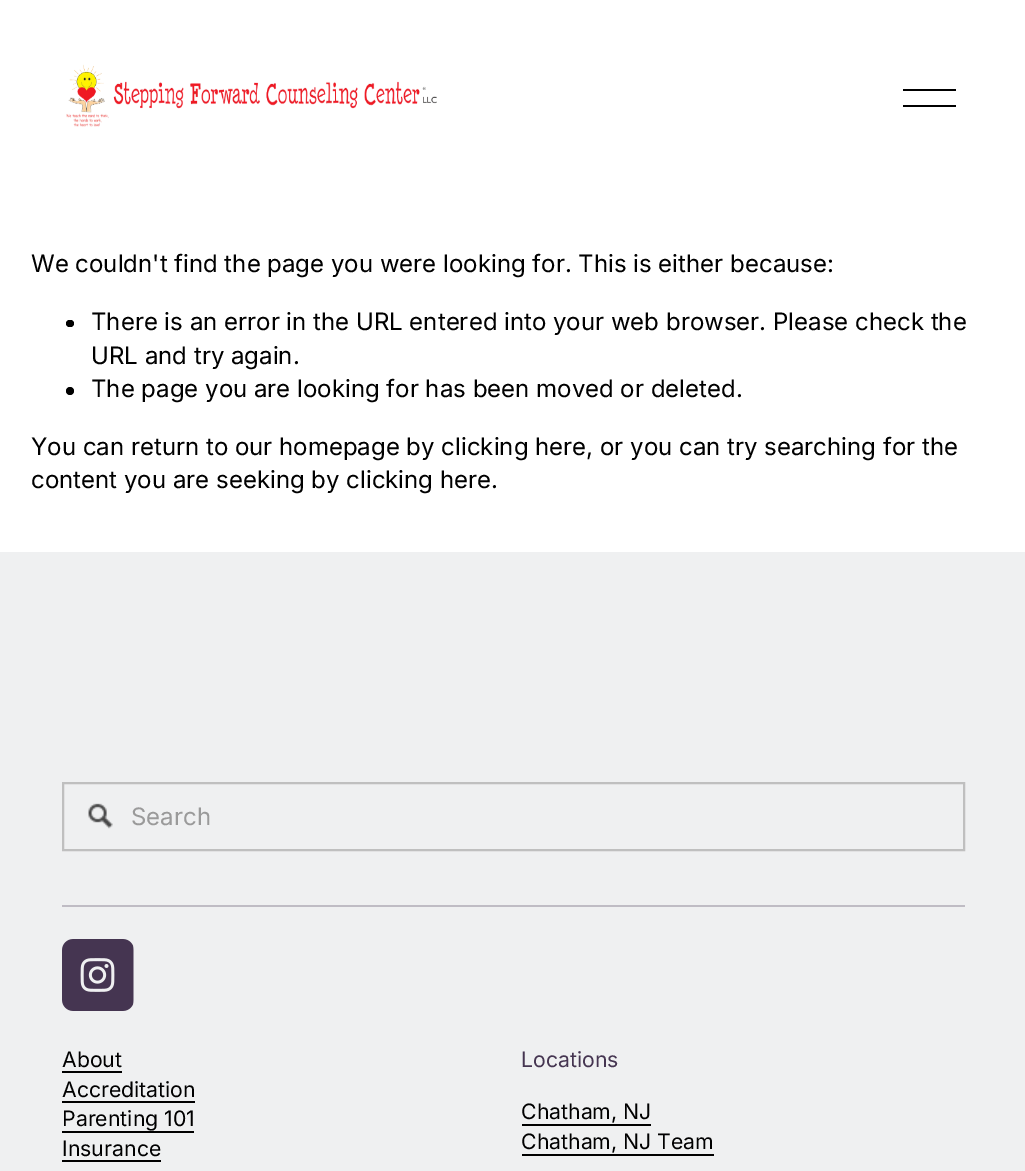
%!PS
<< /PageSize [1025 1171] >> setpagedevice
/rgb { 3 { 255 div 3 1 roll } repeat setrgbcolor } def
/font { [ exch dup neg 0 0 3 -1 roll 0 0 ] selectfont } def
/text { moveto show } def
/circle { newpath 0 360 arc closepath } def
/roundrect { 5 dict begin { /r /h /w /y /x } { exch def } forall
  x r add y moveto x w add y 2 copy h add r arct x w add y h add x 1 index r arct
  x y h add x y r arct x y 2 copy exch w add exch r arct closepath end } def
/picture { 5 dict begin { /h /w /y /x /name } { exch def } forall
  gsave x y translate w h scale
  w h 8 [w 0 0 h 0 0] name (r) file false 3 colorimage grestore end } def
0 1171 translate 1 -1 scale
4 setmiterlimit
255 255 255 rgb
0 0 1025 1171 rectfill
(img_01.rgb) 66 64 371 63 picture
0 0 0 rgb
903 89 53 2 rectfill
903 105 53 2 rectfill
66 320 8 7 3.5 roundrect fill
70 391 4 circle fill
239 240 241 rgb
0 552 1025 619 rectfill
(img_02.rgb) 88 803 25 26 picture
191 191 191 rgb
2 setlinewidth
63 783 901 67 rectstroke
191 188 196 rgb
62 905 903 2 rectfill
(img_03.rgb) 62 939 72 72 picture
0 0 0 rgb
62 1071 60 2 rectfill
62 1101 133 2 rectfill
62 1131 132 2 rectfill
62 1160 99 2 rectfill
522 1124 129 2 rectfill
522 1154 192 2 rectfill
/Inter-Regular 24 font
(We couldn't find the page you were looking for. This is either because:) 31 272 text
(There is an error in the URL entered into your web browser. Please check the) 91 330 text
(URL and try again.) 91 364 text
(The page you are looking for has been moved or deleted.) 91 397 text
(You can return to our homepage by clicking here, or you can try searching for the) 31 455 text
(content you are seeking by clicking here.) 31 488 text
154 154 154 rgb
(Search) 131 825 text
/Inter-Regular 21.25 font
0 0 0 rgb
(About) 62 1067 text
(Accreditation) 62 1097 text
(Parenting 101) 62 1126 text
(Insurance) 62 1156 text
69 53 81 rgb
(Locations) 521 1067 text
0 0 0 rgb
(Chatham, NJ) 521 1119 text
(Chatham, NJ Team) 521 1149 text
showpage
